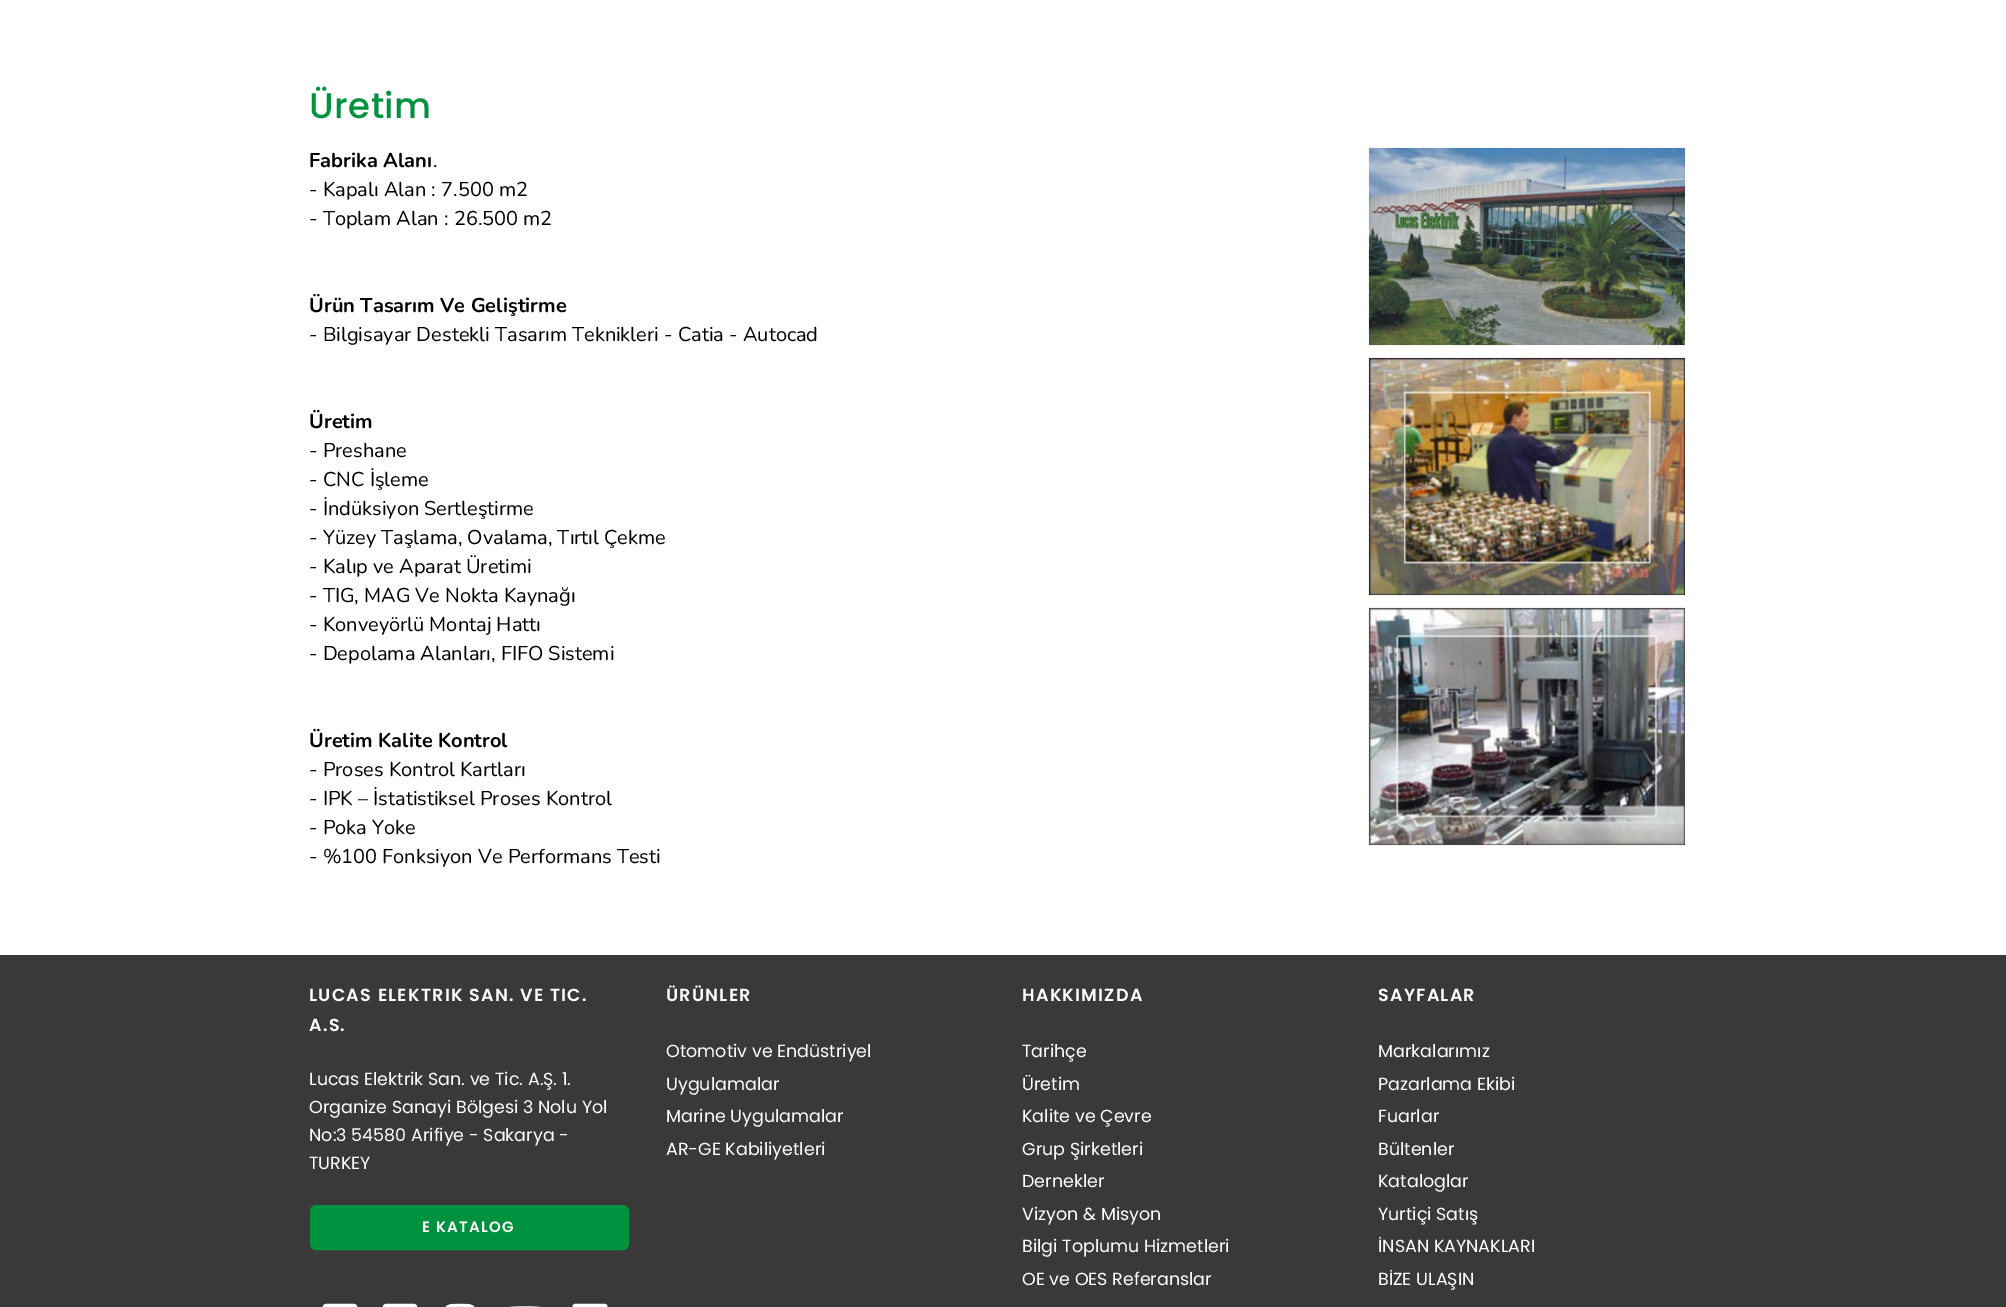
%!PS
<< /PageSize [2006 1307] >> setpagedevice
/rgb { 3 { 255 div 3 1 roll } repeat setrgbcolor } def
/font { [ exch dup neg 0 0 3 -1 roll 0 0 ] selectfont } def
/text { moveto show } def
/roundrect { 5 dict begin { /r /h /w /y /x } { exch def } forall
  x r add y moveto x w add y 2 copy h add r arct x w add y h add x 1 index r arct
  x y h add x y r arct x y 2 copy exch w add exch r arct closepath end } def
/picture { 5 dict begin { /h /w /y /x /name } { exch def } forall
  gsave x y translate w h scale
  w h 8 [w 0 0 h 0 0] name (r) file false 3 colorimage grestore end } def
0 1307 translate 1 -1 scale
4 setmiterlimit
255 255 255 rgb
0 0 2006 1307 rectfill
(img_01.rgb) 1368 147 317 199 picture
(img_02.rgb) 1368 357 317 239 picture
(img_03.rgb) 1368 607 317 239 picture
57 57 57 rgb
0 955 2006 352 rectfill
0 146 63 rgb
310.5 1205.5 318 44 5.5 roundrect gsave fill grestore
stroke
(img_04.rgb) 322 1303 36 4 picture
(img_04.rgb) 382 1303 36 4 picture
(img_05.rgb) 445 1303 30 4 picture
(img_06.rgb) 509 1306 32 1 picture
(img_07.rgb) 572 1303 36 4 picture
/Poppins-Medium 35.5 font
309 118 moveto 0.5 0 (Üretim) ashow
/Nunito-Bold 20 font
0 0 0 rgb
(Fabrika Alanı) 309 167 text
/Nunito-Regular 20 font
(.) 433 167 text
(- Kapalı Alan : 7.500 m2) 309 196 text
(- Toplam Alan : 26.500 m2) 309 225 text
/Nunito-Bold 20 font
(Ürün Tasarım Ve Geliştirme) 309 312 text
/Nunito-Regular 20 font
(- Bilgisayar Destekli Tasarım Teknikleri - Catia - Autocad) 309 341 text
/Nunito-Bold 20 font
(Üretim) 309 428 text
/Nunito-Regular 20 font
(- Preshane) 309 457 text
(- CNC İşleme) 309 486 text
(- İndüksiyon Sertleştirme) 309 515 text
(- Yüzey Taşlama, Ovalama, Tırtıl Çekme) 309 544 text
(- Kalıp ve Aparat Üretimi) 309 573 text
(- TIG, MAG Ve Nokta Kaynağı) 309 602 text
(- Konveyörlü Montaj Hattı) 309 631 text
(- Depolama Alanları, FIFO Sistemi) 309 660 text
/Nunito-Bold 20 font
(Üretim Kalite Kontrol) 309 747 text
/Nunito-Regular 20 font
(- Proses Kontrol Kartları) 309 776 text
(- IPK – İstatistiksel Proses Kontrol) 309 805 text
(- Poka Yoke) 309 834 text
(- %100 Fonksiyon Ve Performans Testi) 309 863 text
/Poppins-SemiBold 17.5 font
255 255 255 rgb
309 1001 moveto 1.25 0 (LUCAS ELEKTRIK SAN. VE TIC.) ashow
309 1031 moveto 1.25 0 (A.S.) ashow
/Poppins-Regular 17.5 font
(Lucas Elektrik San. ve Tic. A.Ş. 1.) 309 1085 text
(Organize Sanayi Bölgesi 3 Nolu Yol) 309 1113 text
(No:3 54580 Arifiye - Sakarya -) 309 1141 text
(TURKEY) 309 1169 text
/Poppins-SemiBold 15 font
422 1232 moveto 1.25 0 (E KATALOG) ashow
/Poppins-SemiBold 17.5 font
666 1001 moveto 1.25 0 (ÜRÜNLER) ashow
/Poppins-Regular 17.5 font
(Otomotiv ve Endüstriyel) 666 1057 text
(Uygulamalar) 666 1090 text
(Marine Uygulamalar) 666 1122 text
(AR-GE Kabiliyetleri) 666 1155 text
/Poppins-SemiBold 17.5 font
1022 1001 moveto 1.25 0 (HAKKIMIZDA) ashow
/Poppins-Regular 17.5 font
(Tarihçe) 1022 1057 text
(Üretim) 1022 1090 text
(Kalite ve Çevre) 1022 1122 text
(Grup Şirketleri) 1022 1155 text
(Dernekler) 1022 1187 text
(Vizyon & Misyon) 1022 1220 text
(Bilgi Toplumu Hizmetleri) 1022 1252 text
(OE ve OES Referanslar) 1022 1285 text
/Poppins-SemiBold 17.5 font
1378 1001 moveto 1.25 0 (SAYFALAR) ashow
/Poppins-Regular 17.5 font
(Markalarımız) 1378 1057 text
(Pazarlama Ekibi) 1378 1090 text
(Fuarlar) 1378 1122 text
(Bültenler) 1378 1155 text
(Kataloglar) 1378 1187 text
(Yurtiçi Satış) 1378 1220 text
(İNSAN KAYNAKLARI) 1378 1252 text
(BİZE ULAŞIN) 1378 1285 text
showpage
